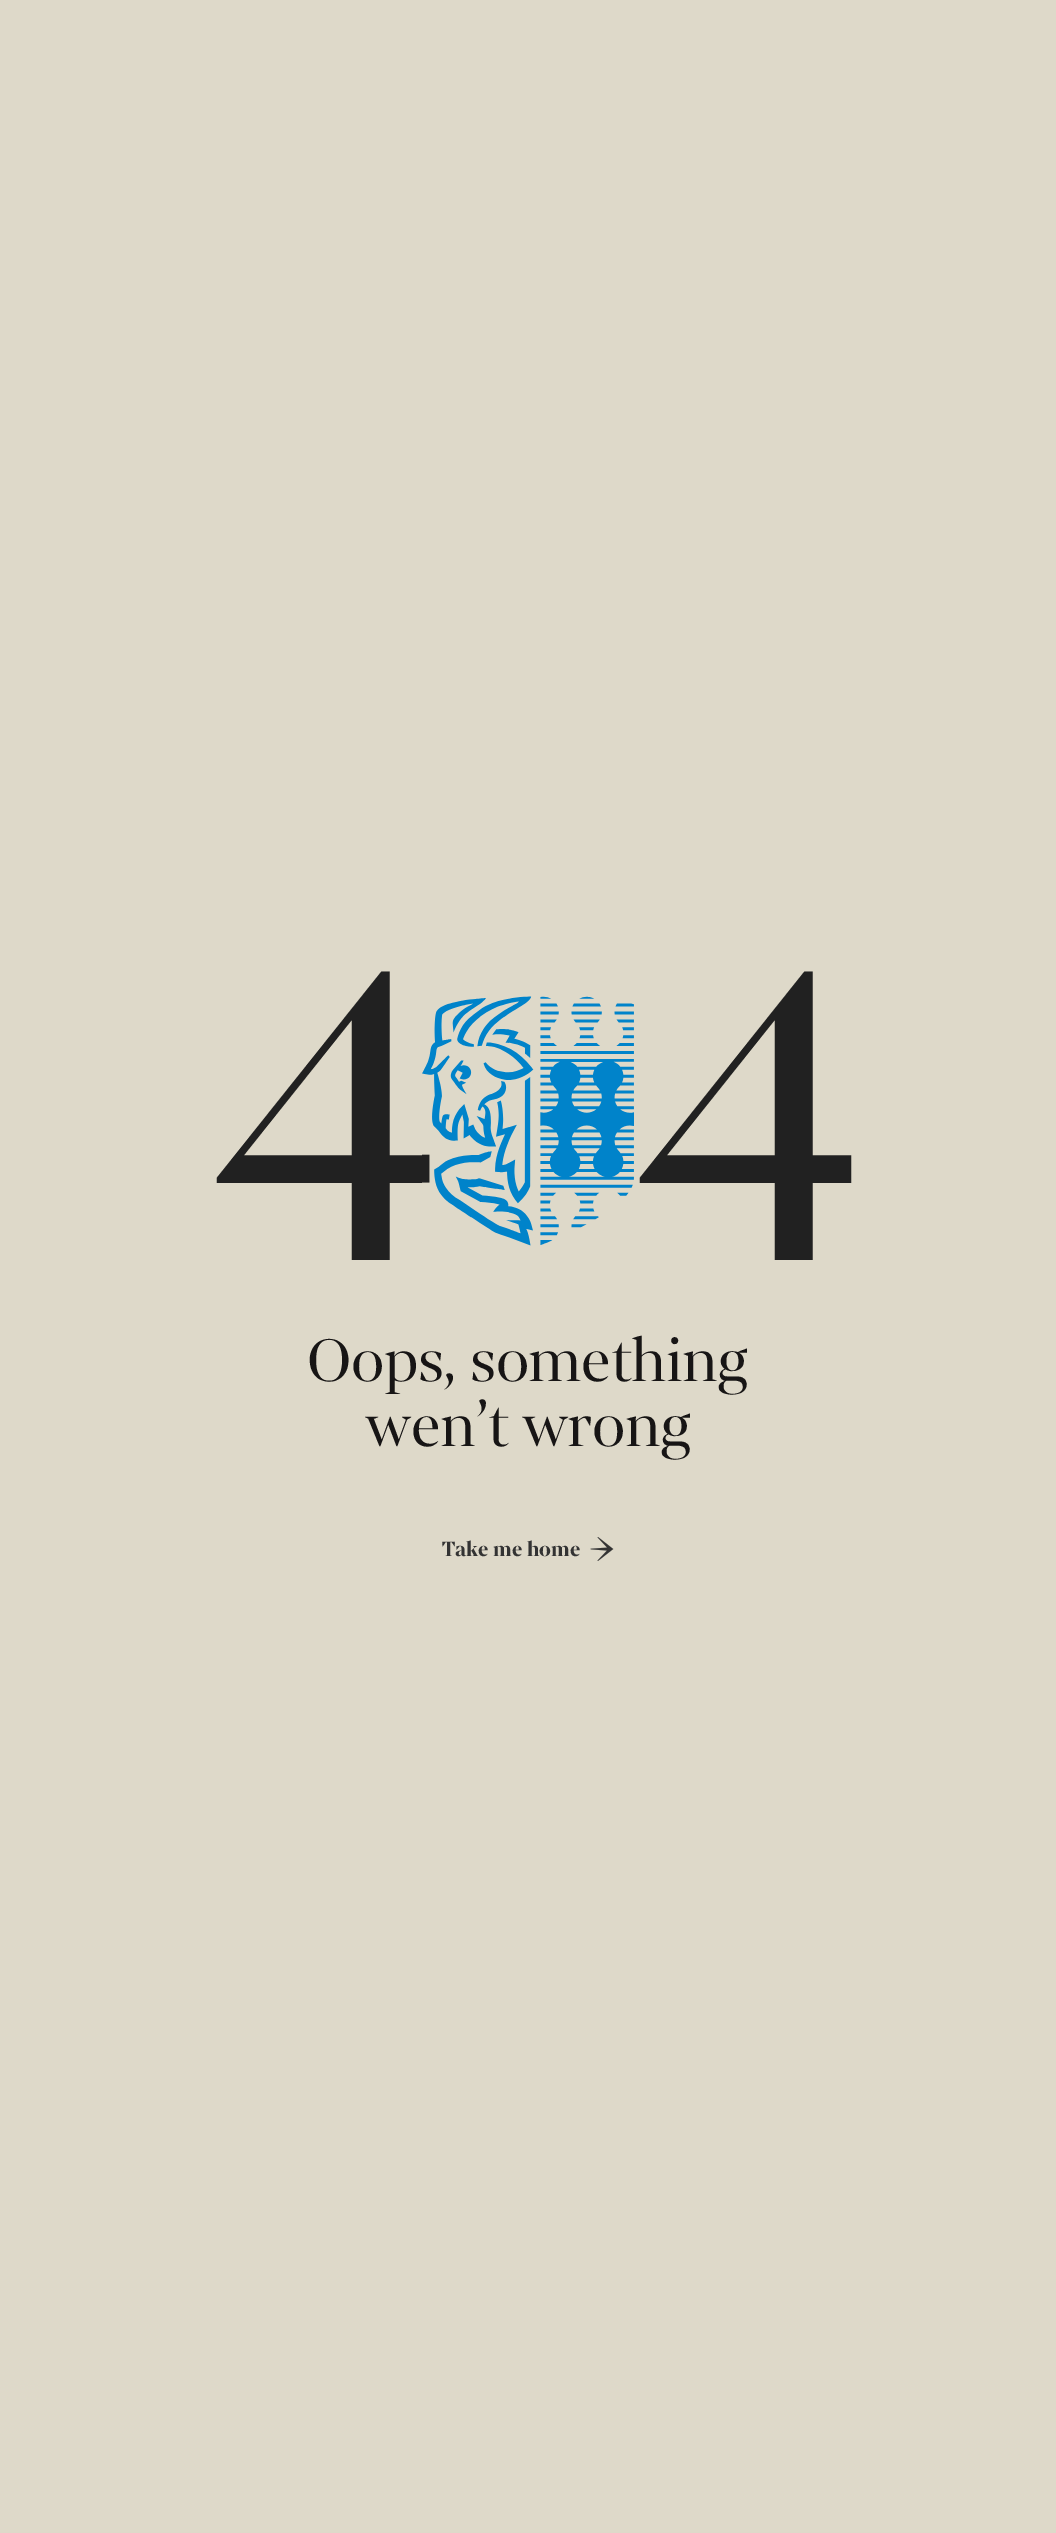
%!PS
<< /PageSize [1056 2533] >> setpagedevice
/rgb { 3 { 255 div 3 1 roll } repeat setrgbcolor } def
/font { [ exch dup neg 0 0 3 -1 roll 0 0 ] selectfont } def
/text { moveto show } def
/picture { 5 dict begin { /h /w /y /x /name } { exch def } forall
  gsave x y translate w h scale
  w h 8 [w 0 0 h 0 0] name (r) file false 3 colorimage grestore end } def
0 2533 translate 1 -1 scale
4 setmiterlimit
222 217 201 rgb
0 0 1056 2533 rectfill
(img_02.rgb) 590 1537 24 24 picture
/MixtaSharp-Regular 450 font
33 33 33 rgb
211 1260 moveto -10 0 (4) ashow
(img_01.rgb) 422 996 212 250 picture
634 1260 moveto -10 0 (4) ashow
/MixtaSharp-Regular 65 font
23 21 21 rgb
307 1381 moveto -0.5 0 (Oops, something) ashow
365 1446 moveto -0.5 0 (wen’t wrong) ashow
/MixtaSharp-Bold 22 font
51 51 51 rgb
(Take me home) 442 1556 text
showpage
